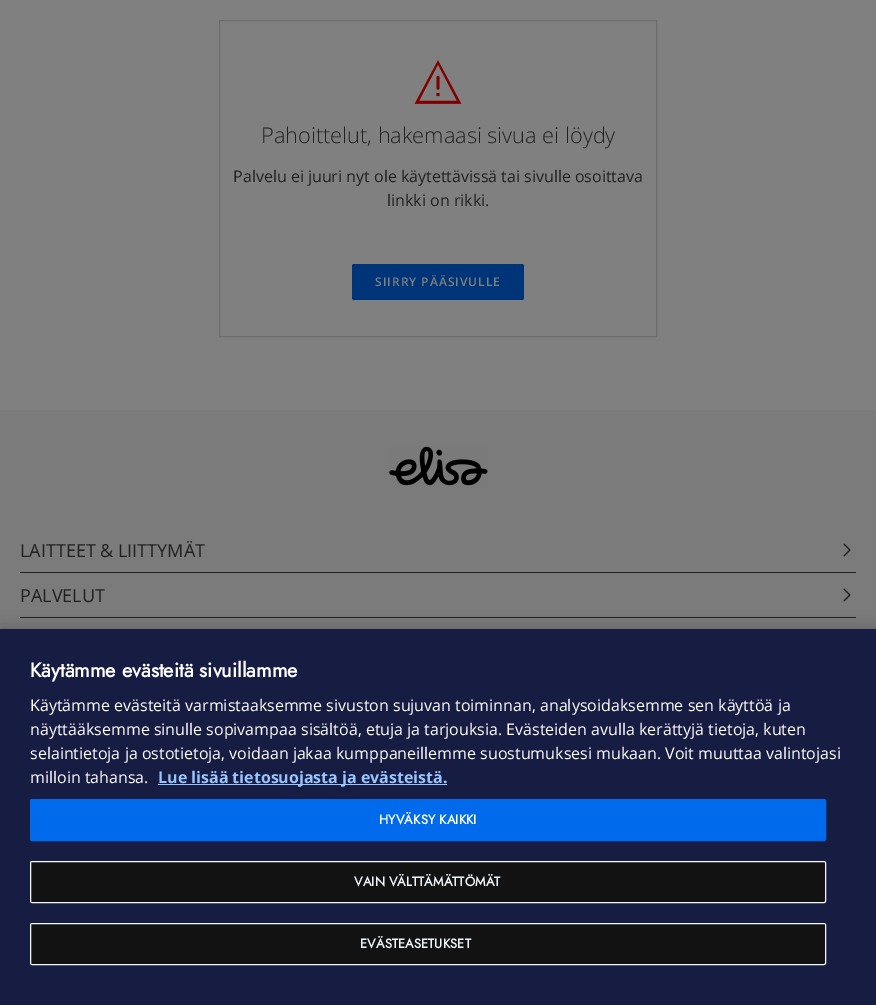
%!PS
<< /PageSize [876 1005] /PageUsesTransparency true >> setpagedevice
/rgb { 3 { 255 div 3 1 roll } repeat setrgbcolor } def
/font { [ exch dup neg 0 0 3 -1 roll 0 0 ] selectfont } def
/text { moveto show } def
/alpha { dup .setfillconstantalpha .setstrokeconstantalpha } def
/roundrect { 5 dict begin { /r /h /w /y /x } { exch def } forall
  x r add y moveto x w add y 2 copy h add r arct x w add y h add x 1 index r arct
  x y h add x y r arct x y 2 copy exch w add exch r arct closepath end } def
/shadow { 12 dict begin { /a /b /q /h /w /y /x } { exch def } forall gsave /was 0 def
  9 -2 -9 { dup b mul 4 div /e exch def 1 sub .425 mul 2.718 exch exp 1 add a .99 .min exch div /now exch def
    1 1 now sub 1 was sub div sub alpha /was now def
    w h .min e 2 mul add 0 gt { x e sub y e sub w e 2 mul add h e 2 mul add
      q e add b .6 mul add w h .min 2 div e add .min 0 .max roundrect fill } if } for grestore end } def
/picture { 5 dict begin { /h /w /y /x /name } { exch def } forall
  gsave x y translate w h scale
  w h 8 [w 0 0 h 0 0] name (r) file false 3 colorimage grestore end } def
0 .pushpdf14devicefilter
0 1005 translate 1 -1 scale
4 setmiterlimit
128 128 128 rgb
0 0 876 1005 rectfill
109 109 109 rgb
219.5 20.5 437 316 rectstroke
(img_01.rgb) 414 60 48 44 picture
0 52 120 rgb
352 264 172 36 2 roundrect fill
123 123 123 rgb
0 410 876 219 rectfill
(img_02.rgb) 389 446 99 40 picture
(img_03.rgb) 843 543 8 14 picture
32 32 33 rgb
20 572 836 1 rectfill
(img_03.rgb) 843 588 8 14 picture
20 617 836 1 rectfill
0 0 0 rgb
0 629 876 376 0 9 0.2 shadow
23 28 67 rgb
0 629 876 376 rectfill
150 197 255 rgb
158 784 289 1 rectfill
0 106 237 rgb
30.5 799.5 795 41 1.5 roundrect gsave fill grestore
stroke
18 18 18 rgb
30.5 861.5 795 41 1.5 roundrect gsave fill grestore
240 247 255 rgb
stroke
18 18 18 rgb
30.5 923.5 795 41 1.5 roundrect gsave fill grestore
240 247 255 rgb
stroke
/OpenSans-Light 21.75 font
32 32 33 rgb
(Pahoittelut, hakemaasi sivua ei löydy) 261 143 text
/OpenSans-Regular 16 font
(Palvelu ei juuri nyt ole käytettävissä tai sivulle osoittava) 233 182 text
(linkki on rikki.) 387 206 text
/OpenSans-SemiBold 12 font
128 128 128 rgb
375 286 moveto 1 0 (SIIRRY PÄÄSIVULLE) ashow
/OpenSans-Regular 18 font
32 32 33 rgb
(LAITTEET & LIITTYMÄT) 20 557 text
(PALVELUT) 20 602 text
/Jost-Bold 20 font
255 255 255 rgb
(Käytämme evästeitä sivuillamme) 30 677 text
/OpenSans-Regular 16 font
(Käytämme evästeitä varmistaaksemme sivuston sujuvan toiminnan, analysoidaksemme sen käyttöä ja) 30 711 text
(näyttääksemme sinulle sopivampaa sisältöä, etuja ja tarjouksia. Evästeiden avulla kerättyjä tietoja, kuten) 30 735 text
(selaintietoja ja ostotietoja, voidaan jakaa kumppaneillemme suostumuksesi mukaan. Voit muuttaa valintojasi) 30 759 text
(milloin tahansa.) 30 783 text
/OpenSans-Bold 16 font
150 197 255 rgb
(Lue lisää tietosuojasta ja evästeistä.) 158 783 text
/Jost-Bold 13 font
255 255 255 rgb
379 824 moveto 0.1 0 (HYVÄKSY KAIKKI) ashow
240 247 255 rgb
354 886 moveto 0.1 0 (VAIN VÄLTTÄMÄTTÖMÄT) ashow
360 948 moveto 0.1 0 (EVÄSTEASETUKSET) ashow
.poppdf14devicefilter showpage
